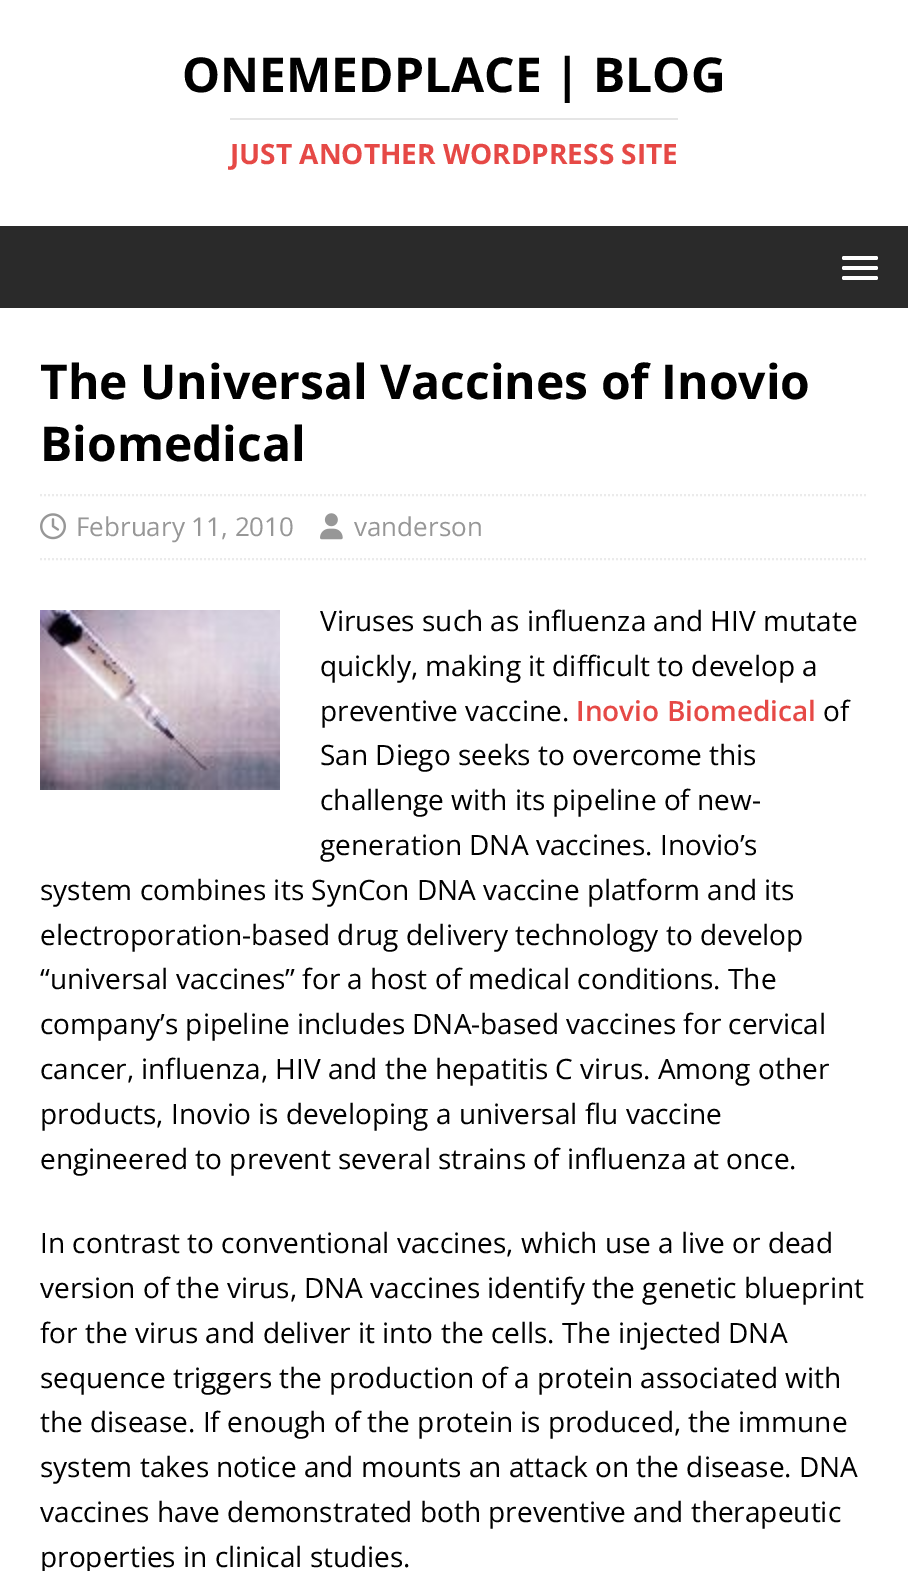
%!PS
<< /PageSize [908 1571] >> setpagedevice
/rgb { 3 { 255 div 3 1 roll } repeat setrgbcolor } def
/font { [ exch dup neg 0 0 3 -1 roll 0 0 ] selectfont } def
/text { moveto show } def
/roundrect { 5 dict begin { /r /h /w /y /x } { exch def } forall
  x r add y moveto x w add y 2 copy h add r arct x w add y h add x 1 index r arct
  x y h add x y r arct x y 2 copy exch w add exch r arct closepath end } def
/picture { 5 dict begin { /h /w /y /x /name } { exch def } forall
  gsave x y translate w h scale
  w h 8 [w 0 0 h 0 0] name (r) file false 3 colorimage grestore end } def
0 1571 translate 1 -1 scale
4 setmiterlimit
255 255 255 rgb
0 0 908 1571 rectfill
229 229 229 rgb
230 118 448 2 rectfill
42 42 42 rgb
0 226 908 82 rectfill
255 255 255 rgb
842 256 36 4 2 roundrect fill
842 266 36 4 2 roundrect fill
842 276 36 4 2 roundrect fill
235 235 235 rgb
2 setlinewidth
[2 2] 0 setdash
40 495 moveto 828 0 rlineto stroke
40 559 moveto 828 0 rlineto stroke
(img_01.rgb) 40 513 26 27 picture
(img_02.rgb) 320 513 23 27 picture
(img_03.rgb) 40 610 240 180 picture
/OpenSans-Bold 48 font
0 0 0 rgb
(ONEMEDPLACE | BLOG) 182 92 text
/OpenSans-Bold 28 font
230 73 70 rgb
(JUST ANOTHER WORDPRESS SITE) 230 164 text
/OpenSans-Bold 48 font
0 0 0 rgb
(The Universal Vaccines of Inovio) 40 399 text
(Biomedical) 40 461 text
/OpenSans-Regular 26 font
151 151 151 rgb
(February 11, 2010) 76 536 text
(vanderson) 354 536 text
/OpenSans-Regular 28 font
0 0 0 rgb
(Viruses such as influenza and HIV mutate) 320 631 text
(quickly, making it difficult to develop a) 320 676 text
(preventive vaccine.) 320 721 text
/OpenSans-SemiBold 28 font
230 73 70 rgb
(Inovio Biomedical) 576 721 text
/OpenSans-Regular 28 font
0 0 0 rgb
(of) 823 721 text
(San Diego seeks to overcome this) 320 765 text
(challenge with its pipeline of new-) 320 810 text
(generation DNA vaccines. Inovio’s) 320 855 text
(system combines its SynCon DNA vaccine platform and its) 40 900 text
(electroporation-based drug delivery technology to develop) 40 945 text
(“universal vaccines” for a host of medical conditions. The) 40 989 text
(company’s pipeline includes DNA-based vaccines for cervical) 40 1034 text
(cancer, influenza, HIV and the hepatitis C virus. Among other) 40 1079 text
(products, Inovio is developing a universal flu vaccine) 40 1124 text
(engineered to prevent several strains of influenza at once.) 40 1169 text
(In contrast to conventional vaccines, which use a live or dead) 40 1253 text
(version of the virus, DNA vaccines identify the genetic blueprint) 40 1298 text
(for the virus and deliver it into the cells. The injected DNA) 40 1343 text
(sequence triggers the production of a protein associated with) 40 1388 text
(the disease. If enough of the protein is produced, the immune) 40 1432 text
(system takes notice and mounts an attack on the disease. DNA) 40 1477 text
(vaccines have demonstrated both preventive and therapeutic) 40 1522 text
(properties in clinical studies.) 40 1567 text
showpage
